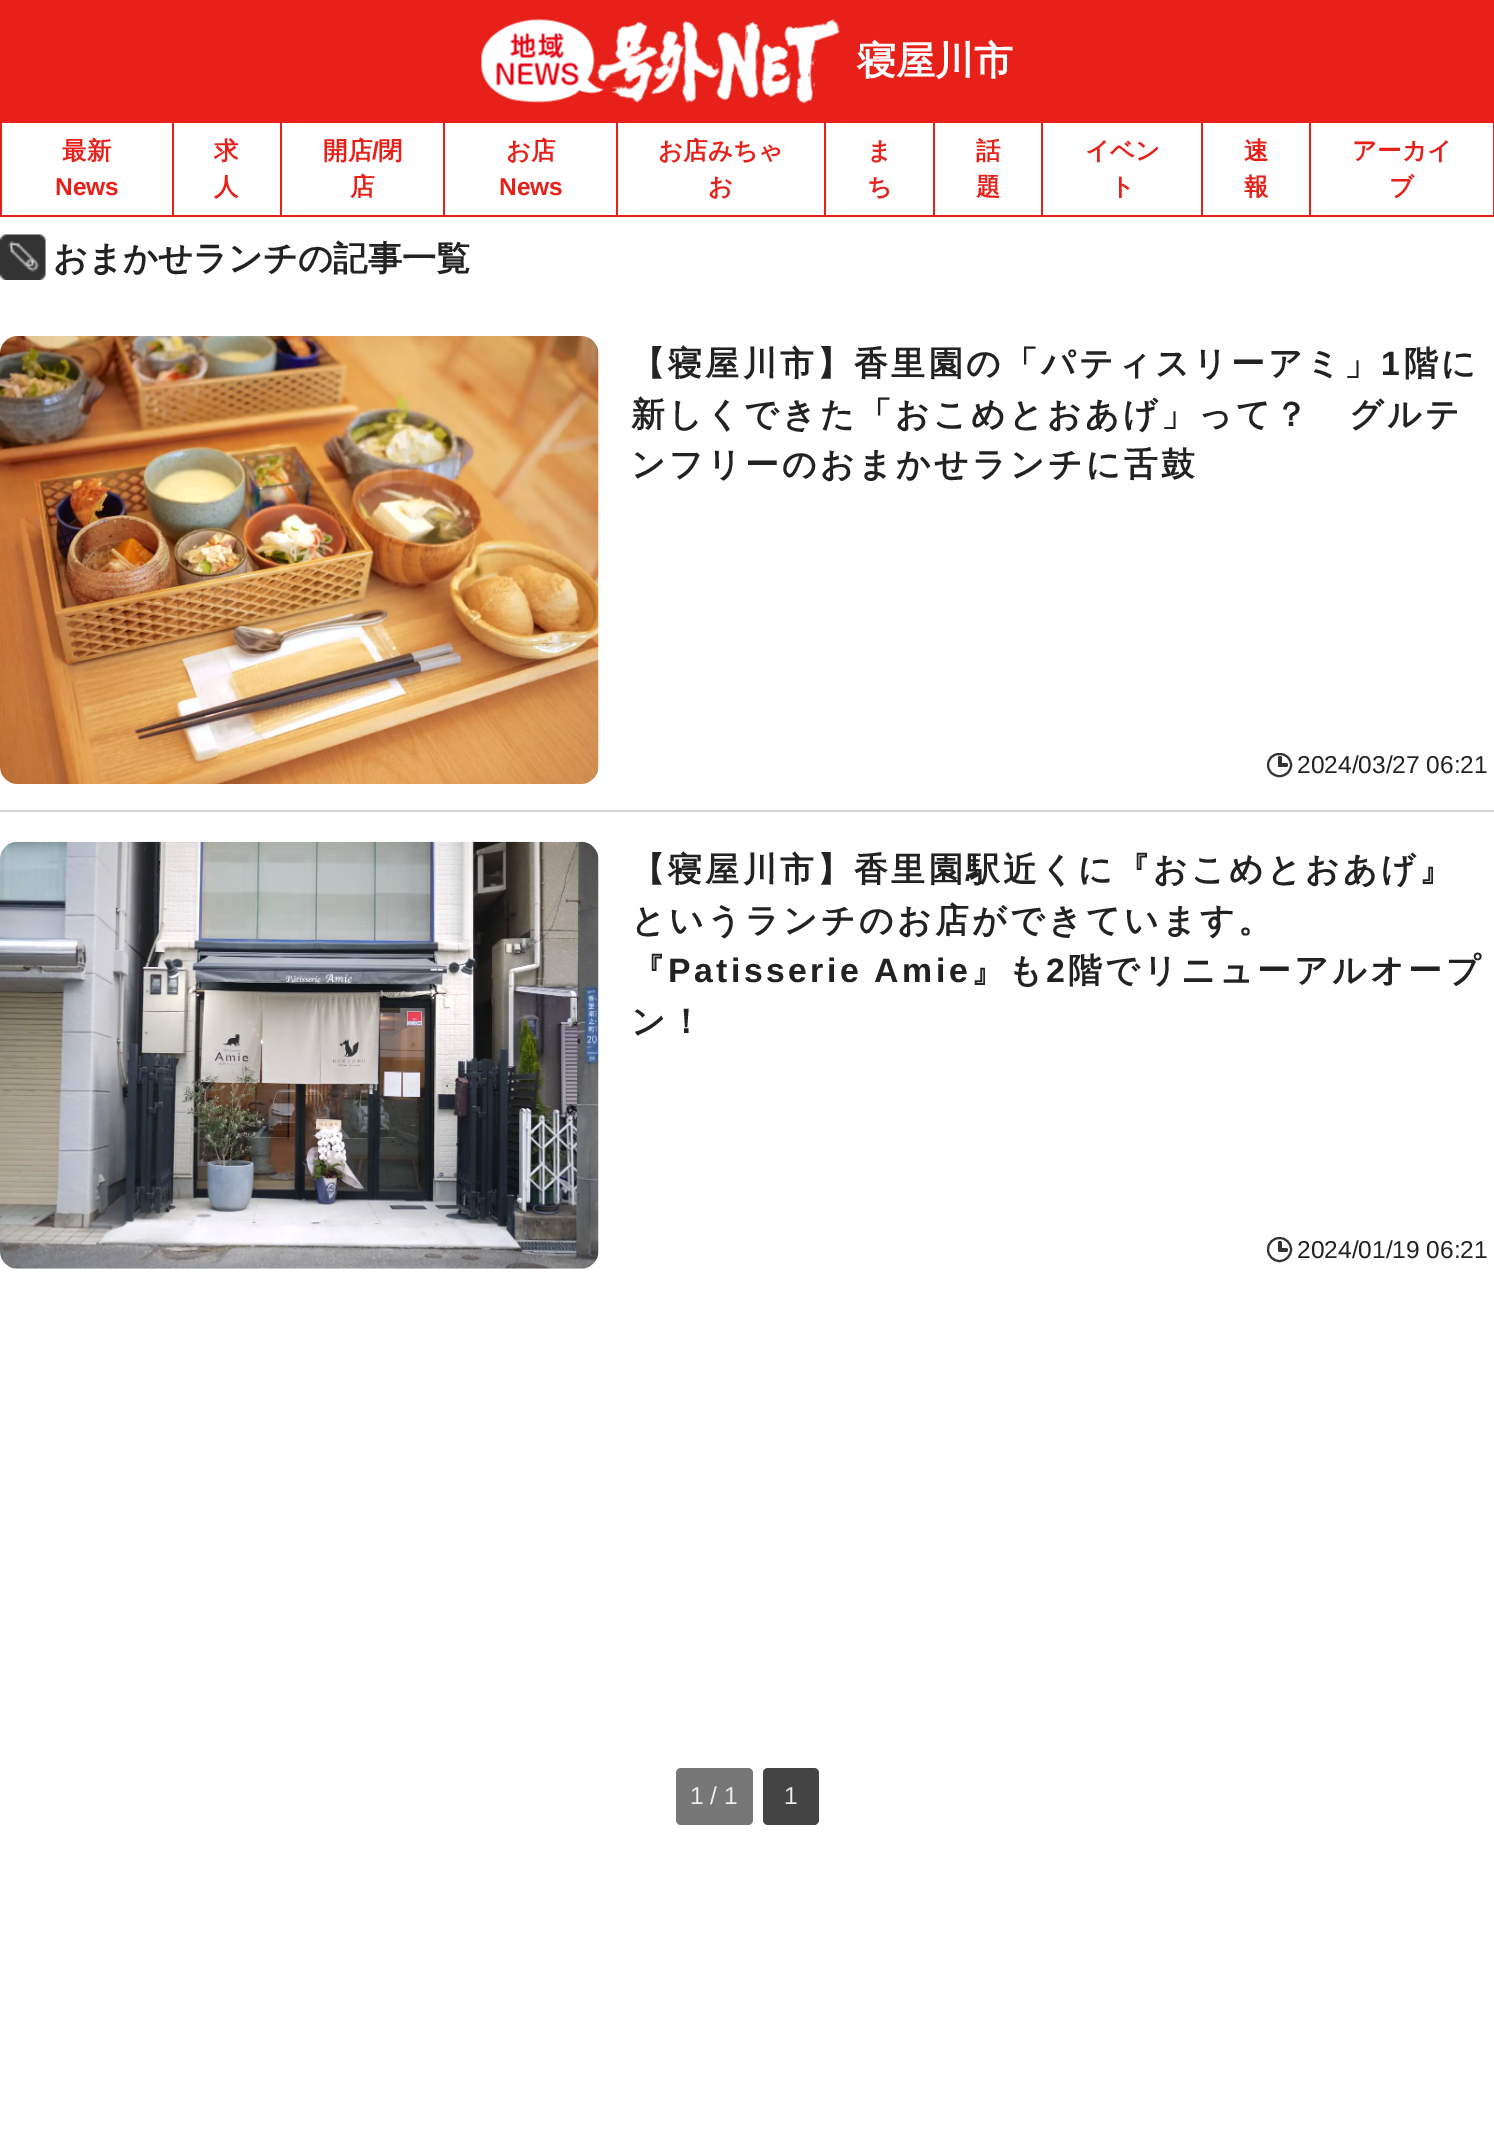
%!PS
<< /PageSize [1494 2135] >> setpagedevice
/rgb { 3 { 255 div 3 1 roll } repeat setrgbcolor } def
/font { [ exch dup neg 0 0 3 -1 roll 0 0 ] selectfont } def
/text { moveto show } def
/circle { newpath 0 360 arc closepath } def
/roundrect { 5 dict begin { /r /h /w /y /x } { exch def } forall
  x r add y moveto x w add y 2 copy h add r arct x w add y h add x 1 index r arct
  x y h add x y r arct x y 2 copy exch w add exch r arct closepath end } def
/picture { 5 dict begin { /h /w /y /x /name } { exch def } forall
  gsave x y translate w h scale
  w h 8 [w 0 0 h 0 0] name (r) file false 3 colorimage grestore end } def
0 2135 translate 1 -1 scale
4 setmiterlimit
255 255 255 rgb
0 0 1494 2135 rectfill
231 33 25 rgb
0 0 1494 123 rectfill
(img_01.rgb) 481 19 359 85 picture
0 215 1494 2 rectfill
172 123 2 92 rectfill
0 123 2 92 rectfill
280 123 2 92 rectfill
443 123 2 92 rectfill
616 123 2 92 rectfill
824 123 2 92 rectfill
933 123 2 92 rectfill
1041 123 2 92 rectfill
1201 123 2 92 rectfill
1309 123 2 92 rectfill
1493 123 1 92 rectfill
(img_02.rgb) 0 234 46 46 picture
(img_03.rgb) 0 336 599 448 picture
51 51 51 rgb
2 setlinewidth
1268 754 23 22 11 roundrect stroke
1278 756 4 11 2 roundrect fill
1278 763 10 4 2 roundrect fill
212 212 212 rgb
0 810 1494 2 rectfill
(img_04.rgb) 0 841 599 428 picture
51 51 51 rgb
1279.5 1249.5 11.5 circle stroke
1278 1241 4 10 2 roundrect fill
1278 1248 10 4 2 roundrect fill
119 119 119 rgb
676 1768 77 57 5 roundrect fill
68 68 68 rgb
763 1768 56 57 5 roundrect fill
/WenQuanYiZenHei-Bold 39 font
255 255 255 rgb
(寝屋川市) 857 74 text
/WenQuanYiZenHei-Bold 24.5 font
231 33 25 rgb
(最新) 62 159 text
/LiberationSans-Bold 24.5 font
(News) 55 195 text
/WenQuanYiZenHei-Bold 24.5 font
(求) 214 159 text
(人) 214 195 text
(開店) 323 159 text
/LiberationSans-Bold 24.5 font
(/) 372 159 text
/WenQuanYiZenHei-Bold 24.5 font
(閉) 378 159 text
(店) 350 195 text
(お店) 506 159 text
/LiberationSans-Bold 24.5 font
(News) 499 195 text
/WenQuanYiZenHei-Bold 24.5 font
(お店みちゃ) 658 159 text
(お) 708 195 text
(ま) 867 159 text
(ち) 867 195 text
(話) 976 159 text
(題) 976 195 text
(イベン) 1085 159 text
(ト) 1110 195 text
(速) 1244 159 text
(報) 1244 195 text
(アーカイ) 1352 159 text
(ブ) 1389 195 text
/WenQuanYiZenHei-Bold 34.25 font
34 34 34 rgb
(おまかせランチの記事一覧) 53 270 text
/WenQuanYiZenHei-Bold 33.8 font
631 375 moveto 3.4 0 (【寝屋川市】香里園の「パティスリーアミ」) ashow
/LiberationSans-Bold 33.8 font
1381 375 moveto 3.4 0 (1) ashow
/WenQuanYiZenHei-Bold 33.8 font
1404 375 moveto 3.4 0 (階に) ashow
631 426 moveto 3.4 0 (新しくできた「おこめとおあげ」って？　グルテ) ashow
631 476 moveto 3.4 0 (ンフリーのおまかせランチに舌鼓) ashow
/LiberationSans-Regular 24.5 font
(2024/03/27 06:21) 1297 773 text
/WenQuanYiZenHei-Bold 33.8 font
631 881 moveto 3.4 0 (【寝屋川市】香里園駅近くに『おこめとおあげ』) ashow
631 932 moveto 3.4 0 (というランチのお店ができています。) ashow
631 982 moveto 3.4 0 (『) ashow
/LiberationSans-Bold 33.8 font
668 982 moveto 3.4 0 (Patisserie Amie) ashow
/WenQuanYiZenHei-Bold 33.8 font
971 982 moveto 3.4 0 (』も) ashow
/LiberationSans-Bold 33.8 font
1046 982 moveto 3.4 0 (2) ashow
/WenQuanYiZenHei-Bold 33.8 font
1068 982 moveto 3.4 0 (階でリニューアルオープ) ashow
631 1033 moveto 3.4 0 (ン！) ashow
/LiberationSans-Regular 24.5 font
(2024/01/19 06:21) 1297 1258 text
238 238 238 rgb
(1 / 1) 690 1804 text
(1) 784 1804 text
showpage
